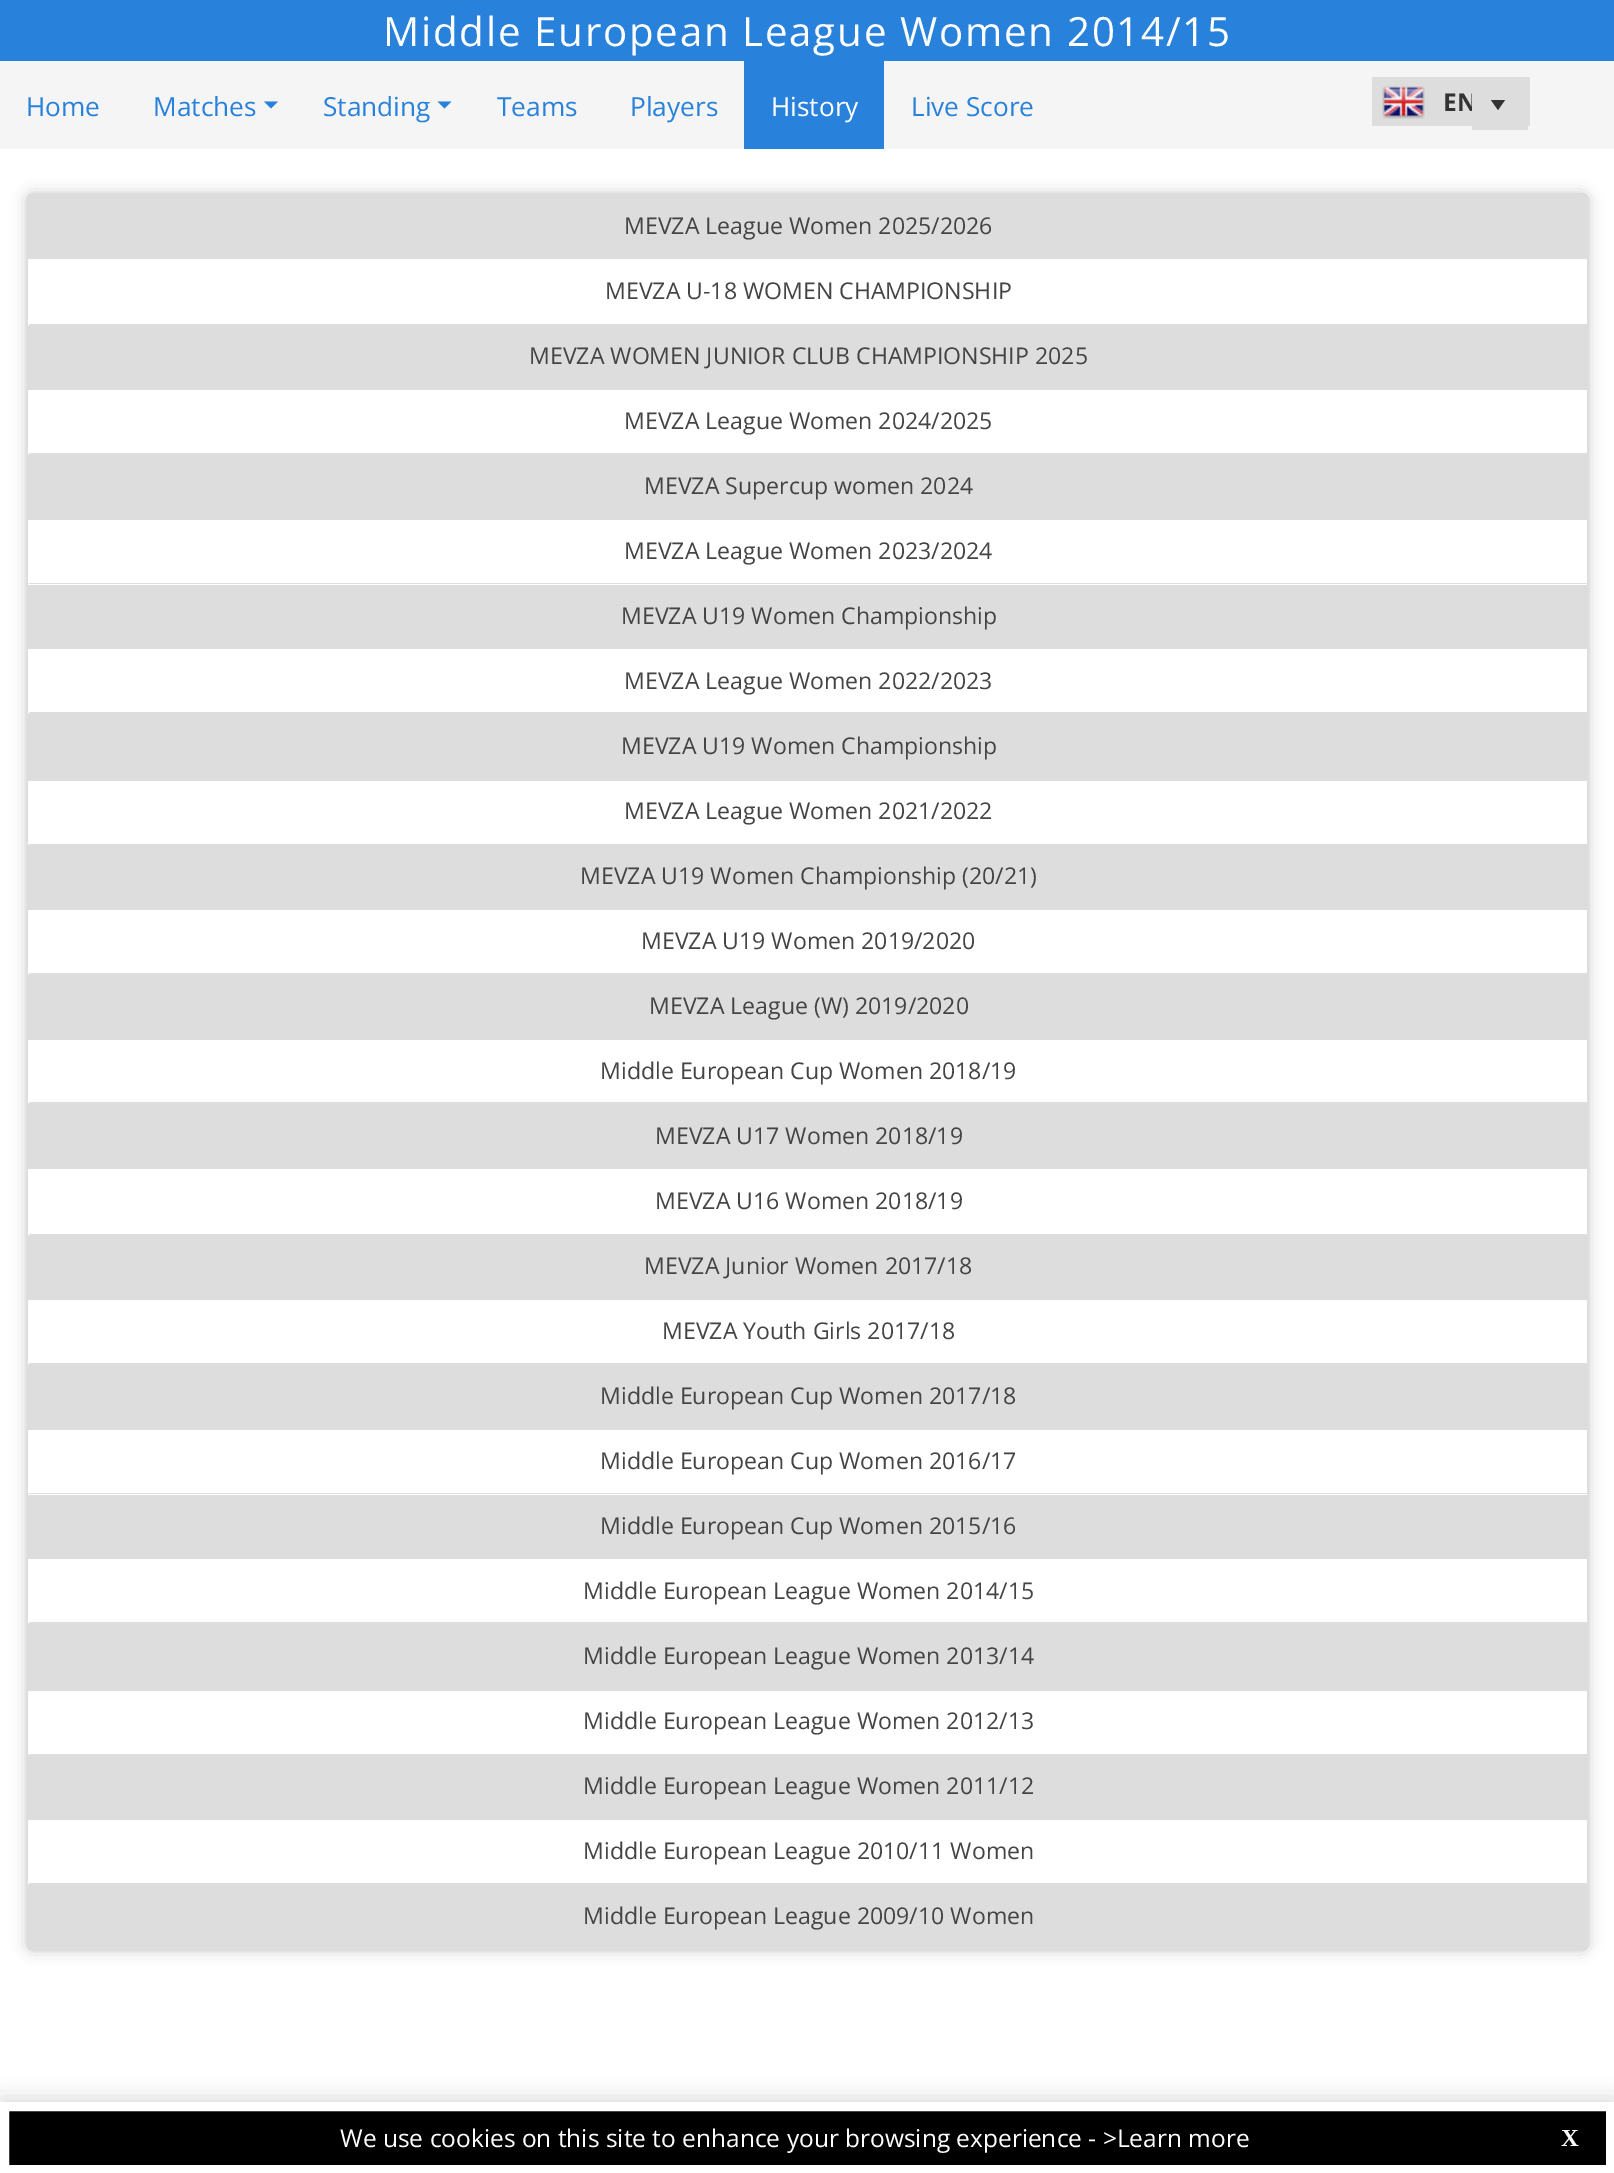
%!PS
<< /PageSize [1614 2173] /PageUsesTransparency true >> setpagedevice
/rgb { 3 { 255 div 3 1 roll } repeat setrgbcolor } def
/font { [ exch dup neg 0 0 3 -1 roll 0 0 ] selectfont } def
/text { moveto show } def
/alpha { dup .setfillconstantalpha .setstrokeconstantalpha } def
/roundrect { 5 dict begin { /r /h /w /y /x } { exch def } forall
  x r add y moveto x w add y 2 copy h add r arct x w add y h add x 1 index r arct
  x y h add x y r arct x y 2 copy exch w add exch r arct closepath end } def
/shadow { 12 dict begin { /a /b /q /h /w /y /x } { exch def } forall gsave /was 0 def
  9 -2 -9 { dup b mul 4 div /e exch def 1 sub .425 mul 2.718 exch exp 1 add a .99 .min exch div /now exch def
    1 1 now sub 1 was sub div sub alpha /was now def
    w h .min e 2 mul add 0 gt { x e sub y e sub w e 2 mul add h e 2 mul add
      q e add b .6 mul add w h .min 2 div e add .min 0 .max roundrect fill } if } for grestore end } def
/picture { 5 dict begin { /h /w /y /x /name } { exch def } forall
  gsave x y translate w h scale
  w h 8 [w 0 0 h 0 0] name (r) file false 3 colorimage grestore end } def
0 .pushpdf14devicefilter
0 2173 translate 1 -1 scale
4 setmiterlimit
255 255 255 rgb
0 0 1614 2173 rectfill
40 129 218 rgb
0 0 1614 61 rectfill
245 245 245 rgb
0 61 1614 88 rectfill
40 129 218 rgb
264 101.5 moveto 14 0 rlineto -7 7 rlineto closepath fill
437.5 101.5 moveto 14 0 rlineto -7 7 rlineto closepath fill
744 61 140 88 rectfill
221 221 221 rgb
1372 77 158 49 rectfill
(img_01.rgb) 1382 86 43 33 picture
204 204 204 rgb
26 193 1563 1758 7 7 1 shadow
222 222 222 rgb
2 setlinewidth
27 194 1561 1756 6 roundrect stroke
221 221 221 rgb
28 194 1559 65 rectfill
255 255 255 rgb
28 259 1559 67 rectfill
222 222 222 rgb
1587 326 moveto -1559 0 rlineto 2 -2 rlineto 1557 0 rlineto closepath fill
221 221 221 rgb
30 326 1555 64 rectfill
255 255 255 rgb
28 390 1559 65 rectfill
222 222 222 rgb
1587 455 moveto -1559 0 rlineto 2 -2 rlineto 1557 0 rlineto closepath fill
221 221 221 rgb
30 455 1555 65 rectfill
255 255 255 rgb
28 520 1559 65 rectfill
222 222 222 rgb
1587 584 moveto -1559 0 rlineto 2 -1 rlineto 1557 0 rlineto closepath fill
221 221 221 rgb
30 585 1555 64 rectfill
255 255 255 rgb
28 649 1559 65 rectfill
222 222 222 rgb
1587 714 moveto -1559 0 rlineto 2 -2 rlineto 1557 0 rlineto closepath fill
221 221 221 rgb
30 714 1555 67 rectfill
255 255 255 rgb
28 781 1559 64 rectfill
222 222 222 rgb
1587 845 moveto -1559 0 rlineto 2 -1 rlineto 1557 0 rlineto closepath fill
221 221 221 rgb
30 845 1555 65 rectfill
255 255 255 rgb
28 910 1559 65 rectfill
222 222 222 rgb
1587 975 moveto -1559 0 rlineto 2 -2 rlineto 1557 0 rlineto closepath fill
221 221 221 rgb
30 975 1555 65 rectfill
255 255 255 rgb
28 1040 1559 64 rectfill
222 222 222 rgb
1587 1104 moveto -1559 0 rlineto 2 -2 rlineto 1557 0 rlineto closepath fill
221 221 221 rgb
30 1104 1555 65 rectfill
255 255 255 rgb
28 1169 1559 67 rectfill
222 222 222 rgb
1587 1236 moveto -1559 0 rlineto 2 -2 rlineto 1557 0 rlineto closepath fill
221 221 221 rgb
30 1236 1555 64 rectfill
255 255 255 rgb
28 1300 1559 65 rectfill
222 222 222 rgb
1587 1365 moveto -1559 0 rlineto 2 -2 rlineto 1557 0 rlineto closepath fill
221 221 221 rgb
30 1365 1555 65 rectfill
255 255 255 rgb
28 1430 1559 65 rectfill
222 222 222 rgb
1587 1494 moveto -1559 0 rlineto 2 -1 rlineto 1557 0 rlineto closepath fill
221 221 221 rgb
30 1495 1555 64 rectfill
255 255 255 rgb
28 1559 1559 65 rectfill
222 222 222 rgb
1587 1624 moveto -1559 0 rlineto 2 -2 rlineto 1557 0 rlineto closepath fill
221 221 221 rgb
30 1624 1555 67 rectfill
255 255 255 rgb
28 1691 1559 64 rectfill
222 222 222 rgb
1587 1755 moveto -1559 0 rlineto 2 -1 rlineto 1557 0 rlineto closepath fill
221 221 221 rgb
30 1755 1555 65 rectfill
255 255 255 rgb
28 1820 1559 65 rectfill
222 222 222 rgb
1587 1885 moveto -1559 0 rlineto 2 -2 rlineto 1557 0 rlineto closepath fill
221 221 221 rgb
28 1885 1559 65 rectfill
0 2097 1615 70 0 10.5 1 shadow
0 0 0 rgb
4.5 2106.5 moveto 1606 0 rlineto 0 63 rlineto -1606 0 rlineto closepath gsave fill grestore
255 255 255 rgb
9 setlinewidth
stroke
/OpenSans-Regular 40.25 font
383 46 moveto 1.75 0 (Middle European League Women 2014/15) ashow
/OpenSans-Regular 26.25 font
40 129 218 rgb
(Home) 26 116 text
(Matches) 153 116 text
(Standing) 323 116 text
(Teams) 497 116 text
(Players) 630 116 text
255 255 255 rgb
(History) 771 116 text
40 129 218 rgb
(Live Score) 911 116 text
/OpenSans-Bold 24.5 font
51 51 51 rgb
(EN) 1443 111 text
221 221 221 rgb
1472 93 56 37 rectfill
51 51 51 rgb
1498 110 moveto -7 -10 rlineto 14 0 rlineto closepath fill
/OpenSans-Regular 23.1 font
68 68 68 rgb
(MEVZA League Women 2025/2026) 624 234 text
(MEVZA U-18 WOMEN CHAMPIONSHIP) 605 299 text
(MEVZA WOMEN JUNIOR CLUB CHAMPIONSHIP) 529 364 text
(2025) 1035 364 text
(MEVZA League Women 2024/2025) 624 429 text
(MEVZA Supercup women 2024) 644 494 text
(MEVZA League Women 2023/2024) 624 559 text
(MEVZA U19 Women Championship) 621 624 text
(MEVZA League Women 2022/2023) 624 689 text
(MEVZA U19 Women Championship) 621 754 text
(MEVZA League Women 2021/2022) 624 819 text
(MEVZA U19 Women Championship \(20/21\)) 580 884 text
(MEVZA U19 Women 2019/2020) 641 949 text
(MEVZA League \(W\) 2019/2020) 649 1014 text
(Middle European Cup Women 2018/19) 600 1079 text
(MEVZA U17 Women 2018/19) 655 1144 text
(MEVZA U16 Women 2018/19) 655 1209 text
(MEVZA Junior Women 2017/18) 644 1274 text
(MEVZA Youth Girls 2017/18) 662 1339 text
(Middle European Cup Women 2017/18) 600 1404 text
(Middle European Cup Women 2016/17) 600 1469 text
(Middle European Cup Women 2015/16) 600 1534 text
(Middle European League Women 2014/15) 583 1599 text
(Middle European League Women 2013/14) 583 1664 text
(Middle European League Women 2012/13) 583 1729 text
(Middle European League Women 2011/12) 583 1794 text
(Middle European League 2010/11 Women) 583 1859 text
(Middle European League 2009/10 Women) 583 1924 text
/OpenSans-Regular 24.5 font
255 255 255 rgb
(We use cookies on this site to enhance your browsing experience - >Learn more) 340 2147 text
/LiberationSerif-Bold 24.5 font
(X) 1561 2146 text
.poppdf14devicefilter showpage
